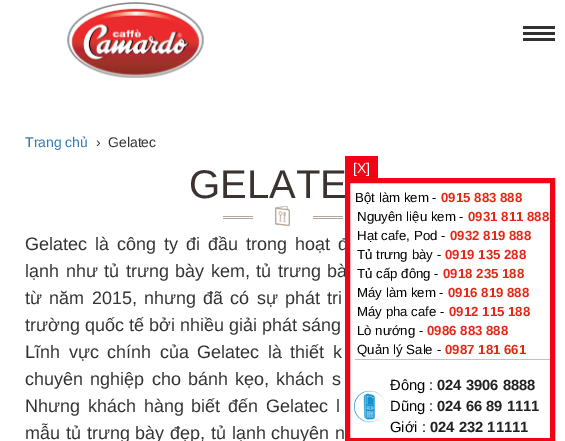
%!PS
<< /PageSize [565 441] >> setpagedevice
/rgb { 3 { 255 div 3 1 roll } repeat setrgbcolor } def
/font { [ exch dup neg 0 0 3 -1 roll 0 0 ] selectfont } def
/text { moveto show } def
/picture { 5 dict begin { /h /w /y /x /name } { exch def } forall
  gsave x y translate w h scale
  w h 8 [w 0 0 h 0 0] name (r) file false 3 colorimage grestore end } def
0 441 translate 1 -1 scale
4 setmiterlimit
255 255 255 rgb
0 0 565 441 rectfill
(img_01.rgb) 67 2 137 76 picture
49 49 49 rgb
523 26 32 3 rectfill
523 32 32 3 rectfill
523 38 32 3 rectfill
181 167 154 rgb
223 216 30 1 rectfill
223 218 30 1 rectfill
(img_02.rgb) 275 206 15 20 picture
313 216 30 1 rectfill
313 218 30 1 rectfill
/LiberationSans-Regular 14 font
51 122 183 rgb
(Trang chủ) 25 147 text
51 51 51 rgb
(›) 96 147 text
(Gelatec) 108 147 text
/LiberationSans-Regular 40 font
58 51 47 rgb
(GELATE) 189 198 text
/LiberationSans-Regular 18 font
51 51 51 rgb
25 250 moveto 3 0 32 (Gelatec là công ty đi đầu trong hoạt đ) widthshow
25 277 moveto 1.5 0 32 (lạnh như tủ trưng bày kem, tủ trưng bà) widthshow
25 304 moveto 2.25 0 32 (từ năm 2015, nhưng đã có sự phát tri) widthshow
(trường quốc tế bởi nhiều giải phát sáng) 25 331 text
25 358 moveto 3.5 0 32 (Lĩnh vực chính của Gelatec là thiết k) widthshow
25 385 moveto 2.25 0 32 (chuyên nghiệp cho bánh kẹo, khách s) widthshow
25 412 moveto 2.75 0 32 (Nhưng khách hàng biết đến Gelatec l) widthshow
25 439 moveto 0.75 0 32 (mẫu tủ trưng bày đẹp, tủ lạnh chuyên n) widthshow
243 4 21 rgb
345 156 33 22 rectfill
/LiberationSans-Regular 14 font
255 255 255 rgb
([X]) 353 173 text
243 4 21 rgb
5 setlinewidth
347.5 180.5 205 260 rectstroke
/LiberationSans-Regular 13.25 font
0 0 0 rgb
(Bột làm kem -) 355 202 text
/LiberationSans-Bold 13.25 font
228 40 23 rgb
(0915 883 888) 441 202 text
/LiberationSans-Regular 13.25 font
0 0 0 rgb
(Nguyên liệu kem -) 357 221 text
/LiberationSans-Bold 13.25 font
228 40 23 rgb
(0931 811 888) 468 221 text
/LiberationSans-Regular 13.25 font
0 0 0 rgb
(Hạt cafe, Pod -) 357 240 text
/LiberationSans-Bold 13.25 font
228 40 23 rgb
(0932 819 888) 450 240 text
/LiberationSans-Regular 13.25 font
0 0 0 rgb
(Tủ trưng bày -) 357 259 text
/LiberationSans-Bold 13.25 font
228 40 23 rgb
(0919 135 288) 445 259 text
/LiberationSans-Regular 13.25 font
0 0 0 rgb
(Tủ cấp đông -) 357 278 text
/LiberationSans-Bold 13.25 font
228 40 23 rgb
(0918 235 188) 443 278 text
/LiberationSans-Regular 13.25 font
0 0 0 rgb
(Máy làm kem -) 357 297 text
/LiberationSans-Bold 13.25 font
228 40 23 rgb
(0916 819 888) 448 297 text
/LiberationSans-Regular 13.25 font
0 0 0 rgb
(Máy pha cafe -) 357 316 text
/LiberationSans-Bold 13.25 font
228 40 23 rgb
(0912 115 188) 449 316 text
/LiberationSans-Regular 13.25 font
0 0 0 rgb
(Lò nướng -) 357 335 text
/LiberationSans-Bold 13.25 font
228 40 23 rgb
(0986 883 888) 427 335 text
/LiberationSans-Regular 13.25 font
0 0 0 rgb
(Quản lý Sale -) 357 354 text
/LiberationSans-Bold 13.25 font
228 40 23 rgb
(0987 181 661) 445 354 text
193 193 193 rgb
355 359 195 1 rectfill
/LiberationSans-Regular 14.75 font
0 0 0 rgb
(Đông :) 390 390 text
/LiberationSans-Bold 14.75 font
33 33 33 rgb
(024 3906 8888) 437 390 text
(img_03.rgb) 353 390 32 33 picture
/LiberationSans-Regular 14.75 font
0 0 0 rgb
(Dũng :) 390 411 text
/LiberationSans-Bold 14.75 font
33 33 33 rgb
(024 66 89 1111) 437 411 text
/LiberationSans-Regular 14.75 font
0 0 0 rgb
(Giới :) 390 432 text
/LiberationSans-Bold 14.75 font
33 33 33 rgb
(024 232 11111) 430 432 text
showpage
